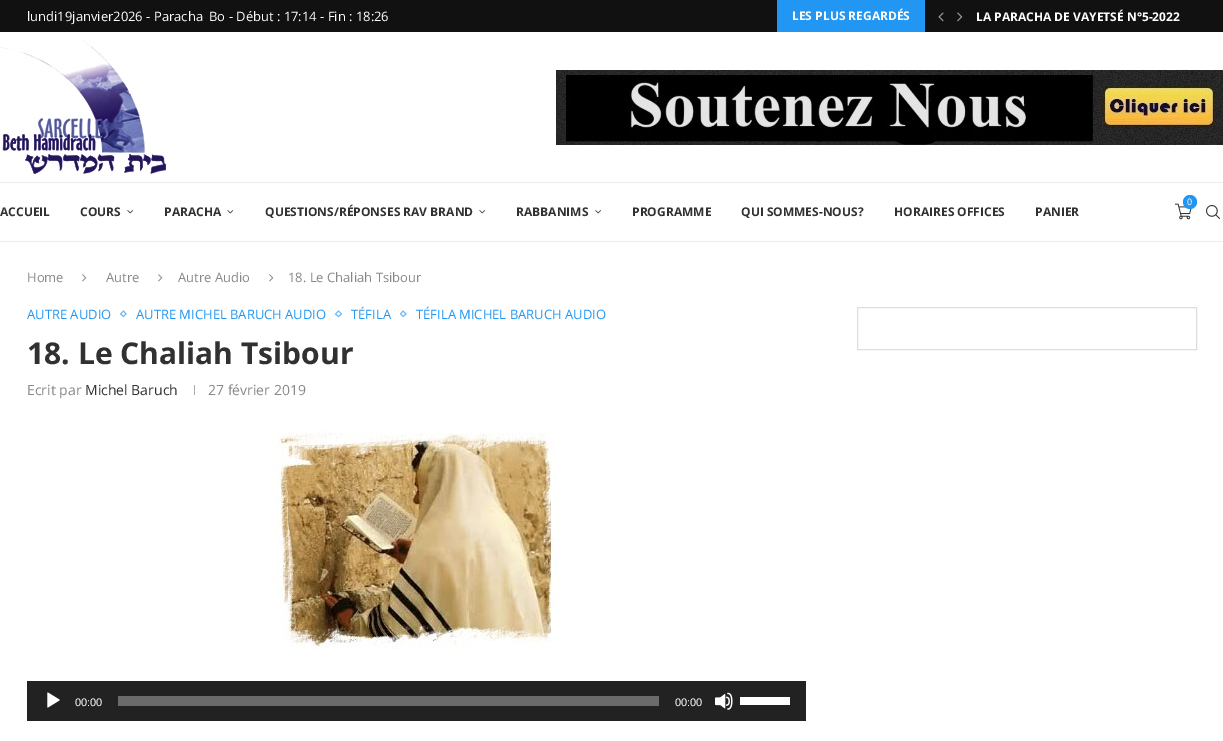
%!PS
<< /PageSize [1223 741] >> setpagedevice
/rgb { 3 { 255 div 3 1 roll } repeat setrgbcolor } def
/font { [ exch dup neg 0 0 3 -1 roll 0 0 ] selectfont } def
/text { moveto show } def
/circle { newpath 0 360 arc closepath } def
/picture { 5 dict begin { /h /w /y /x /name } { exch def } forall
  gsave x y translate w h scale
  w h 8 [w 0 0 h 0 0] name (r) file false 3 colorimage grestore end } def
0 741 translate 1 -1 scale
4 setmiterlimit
255 255 255 rgb
0 0 1223 741 rectfill
17 17 17 rgb
0 0 1223 32 rectfill
33 150 243 rgb
777 0 148 32 rectfill
(img_01.rgb) 938 12 6 10 picture
(img_02.rgb) 957 12 6 10 picture
(img_03.rgb) 0 40 166 134 picture
(img_04.rgb) 556 70 667 75 picture
236 236 236 rgb
0 182 1223 1 rectfill
0 241 1223 1 rectfill
(img_05.rgb) 1175 203 17 17 picture
33 150 243 rgb
1190 202 7 circle fill
(img_06.rgb) 127 210 6 4 picture
(img_07.rgb) 227 210 7 4 picture
(img_08.rgb) 479 210 6 4 picture
(img_09.rgb) 595 210 6 4 picture
(img_10.rgb) 1206 205 14 14 picture
(img_11.rgb) 82 274 5 8 picture
(img_11.rgb) 158 274 5 8 picture
(img_11.rgb) 269 274 5 8 picture
111 187 247 rgb
123.5 311 moveto 2.5 3 rlineto -2.5 2.5 rlineto -3 -2.5 rlineto closepath stroke
338.5 311 moveto 3 3 rlineto -3 2.5 rlineto -3 -2.5 rlineto closepath stroke
403 311 moveto 3 3 rlineto -3 2.5 rlineto -2.5 -2.5 rlineto closepath stroke
172 172 172 rgb
194 385 1 10 rectfill
(img_12.rgb) 271 429 288 220 picture
34 34 34 rgb
27 681 779 40 rectfill
(img_13.rgb) 47 692 13 16 picture
107 107 107 rgb
118 696 541 10 rectfill
(img_14.rgb) 715 692 18 18 picture
255 255 255 rgb
740 697 50 8 rectfill
222 222 222 rgb
857.5 307.5 339 42 rectstroke
/OpenSans-Regular 13 font
255 255 255 rgb
(lundi19janvier2026 - Paracha) 27 21 text
(Bo - Début : 17:14 - Fin : 18:26) 209 21 text
/OpenSans-Bold 12 font
(LES PLUS REGARDÉS) 792 20 text
(LA PARACHA DE VAYETSÉ N°5-2022) 976 21 text
/OpenSans-Regular 9 font
(0) 1187 205 text
/OpenSans-Bold 12 font
49 49 49 rgb
(ACCUEIL) 0 216 text
(COURS) 80 216 text
(PARACHA) 164 216 text
(QUESTIONS/RÉPONSES RAV BRAND) 265 216 text
(RABBANIMS) 516 216 text
(PROGRAMME) 632 216 text
(QUI SOMMES-NOUS?) 741 216 text
(HORAIRES OFFICES) 894 216 text
(PANIER) 1035 216 text
/OpenSans-Regular 13 font
136 136 136 rgb
(Home) 27 282 text
(Autre) 106 282 text
(Autre Audio) 178 282 text
(18. Le Chaliah Tsibour) 288 282 text
33 150 243 rgb
(AUTRE AUDIO) 27 319 text
(AUTRE MICHEL BARUCH AUDIO) 136 319 text
(TÉFILA) 351 319 text
(TÉFILA MICHEL BARUCH AUDIO) 416 319 text
/OpenSans-Bold 30 font
49 49 49 rgb
(18. Le Chaliah Tsibour) 27 364 text
/OpenSans-Regular 14 font
136 136 136 rgb
(Ecrit par) 27 395 text
49 49 49 rgb
(Michel Baruch) 85 395 text
136 136 136 rgb
(27 février 2019) 208 395 text
/LiberationSans-Regular 11 font
255 255 255 rgb
(00:00) 75 706 text
(00:00) 675 706 text
showpage
